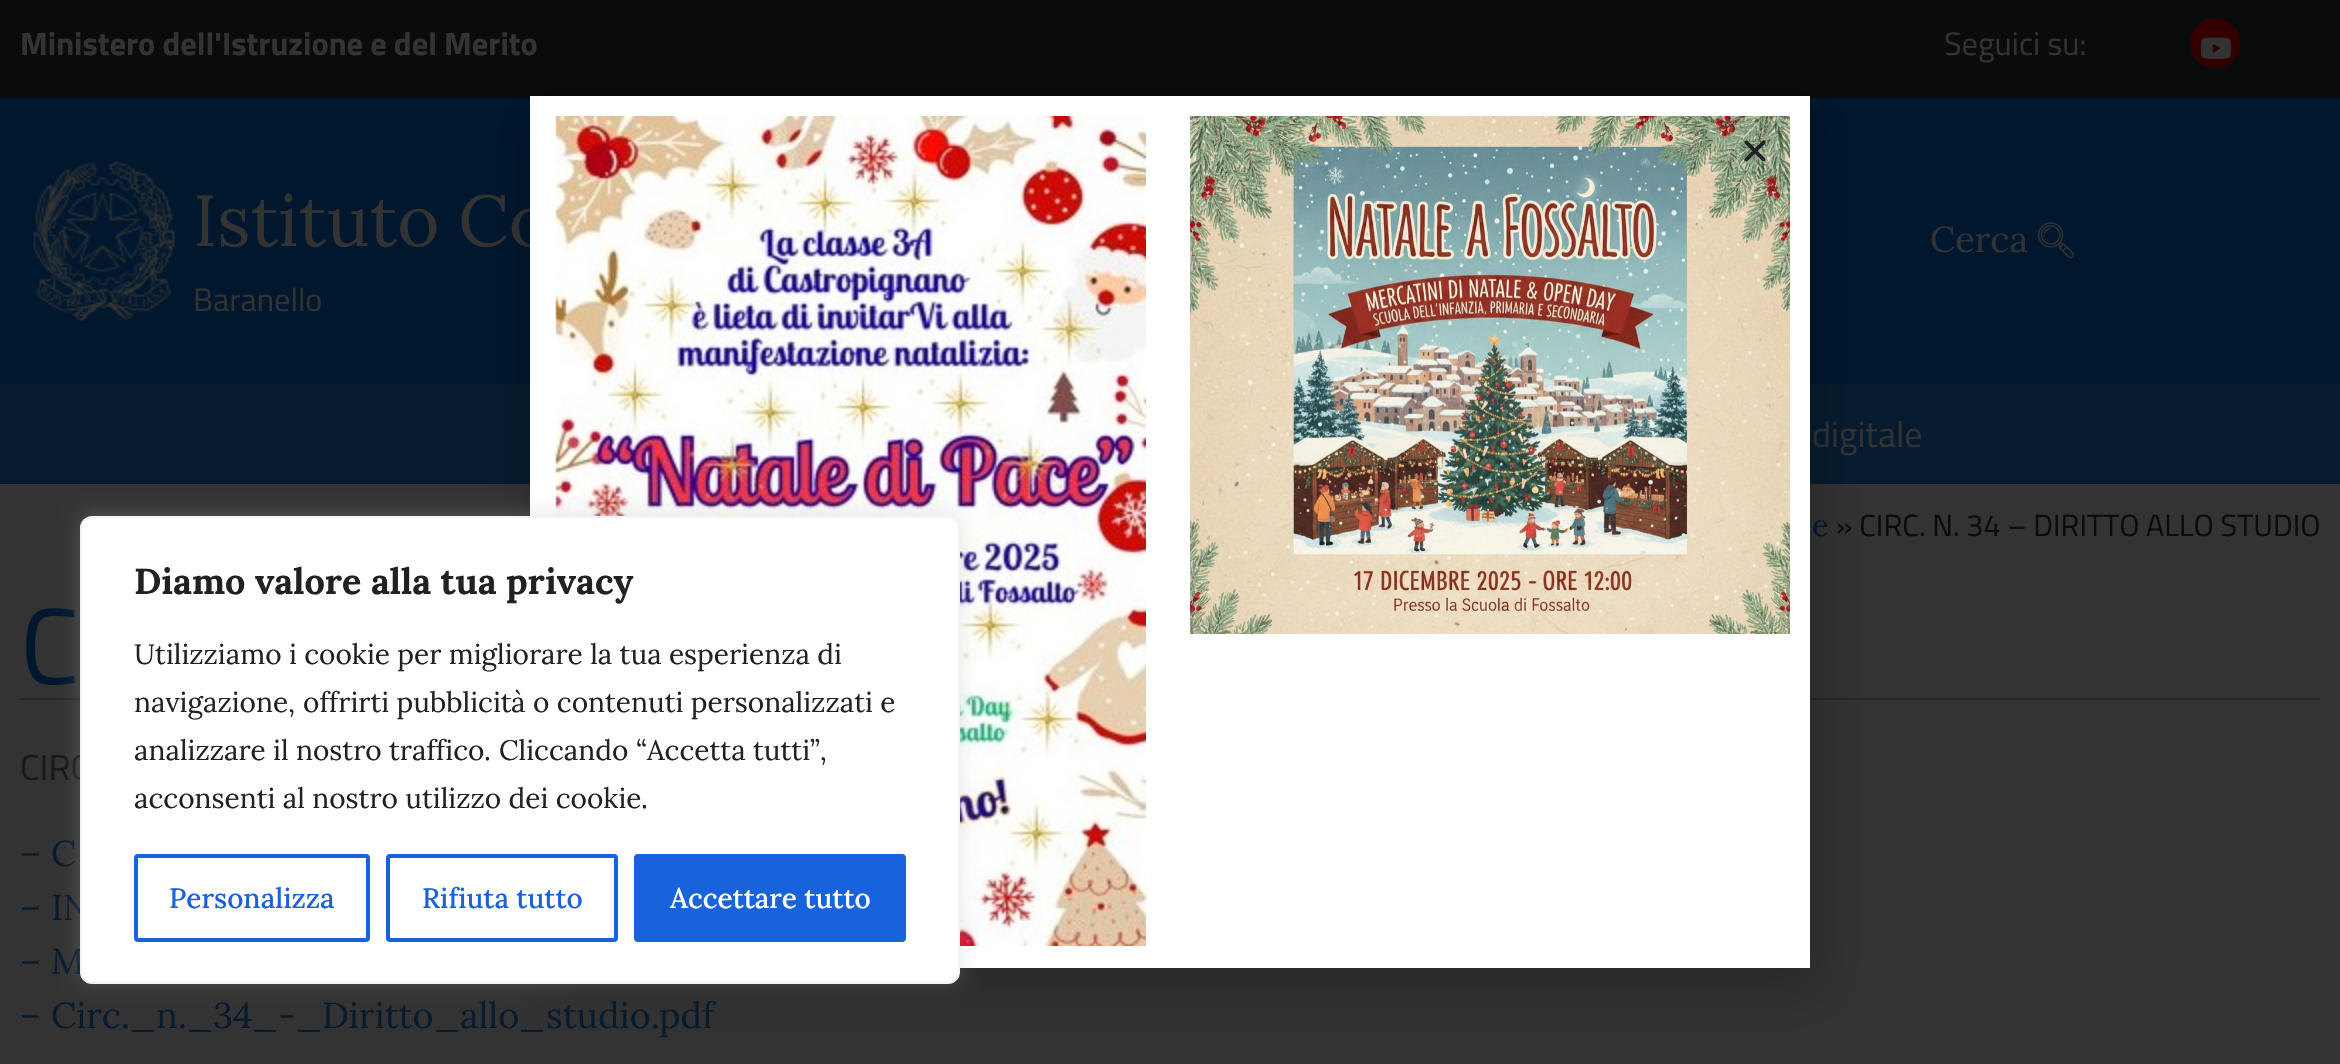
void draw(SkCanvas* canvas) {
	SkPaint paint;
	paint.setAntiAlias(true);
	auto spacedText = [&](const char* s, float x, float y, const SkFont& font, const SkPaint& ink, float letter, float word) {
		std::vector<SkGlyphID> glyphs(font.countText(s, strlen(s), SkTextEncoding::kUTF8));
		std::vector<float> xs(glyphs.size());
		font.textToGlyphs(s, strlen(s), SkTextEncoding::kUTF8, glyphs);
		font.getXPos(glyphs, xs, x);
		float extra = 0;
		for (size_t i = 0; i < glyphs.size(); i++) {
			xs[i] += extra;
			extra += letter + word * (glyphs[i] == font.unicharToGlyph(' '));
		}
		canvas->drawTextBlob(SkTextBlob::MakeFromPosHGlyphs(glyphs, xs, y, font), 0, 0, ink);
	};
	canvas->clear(0xff333333);
	paint.setColor(0xff0a0b0c);
	canvas->drawRect(SkRect::MakeXYWH(0, 0, 2340, 98), paint);
	SkFont f1(fontMgr->matchFamilyStyle("Titillium Web", SkFontStyle::Bold()), 32.4);
	f1.setSubpixel(true);
	paint.setColor(0xff333333);
	canvas->drawString("Ministero dell'Istruzione e del Merito", 20, 55, f1, paint);
	SkFont f2(fontMgr->matchFamilyStyle("Titillium Web", SkFontStyle::Normal()), 32.4);
	f2.setSubpixel(true);
	canvas->drawString("Seguici su:", 1944, 55, f2, paint);
	paint.setColor(0xff330000);
	canvas->drawCircle(2215, 43, 25, paint);
	canvas->drawImageRect(SkImages::DeferredFromEncodedData(SkData::MakeFromFileName("img1.png")), SkRect::MakeXYWH(2200, 37, 32, 22), SkSamplingOptions());
	paint.setColor(0xff00172e);
	canvas->drawRect(SkRect::MakeXYWH(0, 98, 2340, 286), paint);
	canvas->drawImageRect(SkImages::DeferredFromEncodedData(SkData::MakeFromFileName("img2.png")), SkRect::MakeXYWH(33, 161, 142, 160), SkSamplingOptions());
	SkFont f3(fontMgr->matchFamilyStyle("Lora", SkFontStyle::Normal()), 72);
	f3.setSubpixel(true);
	paint.setColor(0xff333333);
	canvas->drawString("Istituto Co", 193, 246, f3, paint);
	canvas->drawString("Baranello", 193, 311, f2, paint);
	SkFont f4(fontMgr->matchFamilyStyle("Lora", SkFontStyle::Normal()), 36);
	f4.setSubpixel(true);
	canvas->drawString("Cerca", 1930, 252, f4, paint);
	canvas->drawImageRect(SkImages::DeferredFromEncodedData(SkData::MakeFromFileName("img3.png")), SkRect::MakeXYWH(2038, 222, 36, 37), SkSamplingOptions());
	paint.setColor(0xff071b2f);
	canvas->drawRect(SkRect::MakeXYWH(0, 384, 2340, 100), paint);
	SkFont f5(fontMgr->matchFamilyStyle("Titillium Web", SkFontStyle::Normal()), 36);
	f5.setSubpixel(true);
	paint.setColor(0xff333333);
	canvas->drawString("digitale", 1812, 447, f5, paint);
	paint.setColor(0xff282727);
	canvas->drawRect(SkRect::MakeXYWH(20, 698, 2300, 2), paint);
	paint.setColor(0x33000000);
	paint.setMaskFilter(SkMaskFilter::MakeBlur(kNormal_SkBlurStyle, 23));
	canvas->drawRect(SkRect::MakeXYWH(528, 106, 1292, 884), paint);
	paint.setMaskFilter(nullptr);
	paint.setColor(0xffffffff);
	canvas->drawRect(SkRect::MakeXYWH(530, 96, 1280, 872), paint);
	canvas->drawImageRect(SkImages::DeferredFromEncodedData(SkData::MakeFromFileName("img4.png")), SkRect::MakeXYWH(555, 116, 591, 830), SkSamplingOptions());
	canvas->drawImageRect(SkImages::DeferredFromEncodedData(SkData::MakeFromFileName("img5.png")), SkRect::MakeXYWH(1190, 116, 600, 518), SkSamplingOptions());
	canvas->drawImageRect(SkImages::DeferredFromEncodedData(SkData::MakeFromFileName("img6.png")), SkRect::MakeXYWH(1744, 140, 22, 22), SkSamplingOptions());
	SkFont f6(fontMgr->matchFamilyStyle("Lora", SkFontStyle::Normal()), 30.6);
	f6.setSubpixel(true);
	paint.setColor(0xff00172e);
	canvas->drawString("e", 1812, 536, f6, paint);
	SkFont f7(fontMgr->matchFamilyStyle("Titillium Web", SkFontStyle::Normal()), 30.6);
	f7.setSubpixel(true);
	paint.setColor(0xff0a0b0c);
	canvas->drawString("» CIRC. N. 34 – DIRITTO ALLO STUDIO", 1836, 536, f7, paint);
	SkFont f8(fontMgr->matchFamilyStyle("Titillium Web", SkFontStyle::Normal()), 108);
	f8.setSubpixel(true);
	paint.setColor(0xff00172e);
	spacedText("C", 20, 684, f8, paint, -2, 0);
	paint.setColor(0xff181818);
	canvas->drawString("CIRC", 20, 780, f5, paint);
	SkFont f9(fontMgr->matchFamilyStyle("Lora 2", SkFontStyle::Normal()), 36);
	f9.setSubpixel(true);
	paint.setColor(0xff071b2f);
	canvas->drawString("–", 20, 866, f9, paint);
	canvas->drawString("C", 51, 866, f4, paint);
	canvas->drawString("–", 20, 920, f9, paint);
	canvas->drawString("IN", 51, 920, f4, paint);
	canvas->drawString("–", 20, 974, f9, paint);
	canvas->drawString("M", 51, 974, f4, paint);
	canvas->drawString("–", 20, 1028, f9, paint);
	canvas->drawString("Circ", 51, 1028, f4, paint);
	canvas->drawString("._", 121, 1028, f9, paint);
	canvas->drawString("n", 156, 1028, f4, paint);
	canvas->drawString("._", 178, 1028, f9, paint);
	canvas->drawString("34", 213, 1028, f4, paint);
	canvas->drawString("_-_", 252, 1028, f9, paint);
	canvas->drawString("Diritto", 322, 1028, f4, paint);
	canvas->drawString("allo", 460, 1028, f4, paint);
	canvas->drawString("studio", 546, 1028, f4, paint);
	canvas->drawString(".", 651, 1028, f9, paint);
	canvas->drawString("pdf", 659, 1028, f4, paint);
	canvas->drawString("_", 434, 1028, f9, paint);
	canvas->drawString("_", 519, 1028, f9, paint);
	paint.setColor(0x4dacabab);
	paint.setMaskFilter(SkMaskFilter::MakeBlur(kNormal_SkBlurStyle, 10));
	canvas->drawRoundRect(SkRect::MakeXYWH(80, 514, 880, 468), 12, 12, paint);
	paint.setMaskFilter(nullptr);
	paint.setColor(0xffffffff);
	canvas->drawRoundRect(SkRect::MakeXYWH(81, 517, 878, 466), 11, 11, paint);
	paint.setStroke(true);
	paint.setStrokeWidth(2);
	paint.setColor(0xfff4f4f4);
	canvas->drawRoundRect(SkRect::MakeXYWH(81, 517, 878, 466), 11, 11, paint);
	SkFont f10(fontMgr->matchFamilyStyle("Lora", SkFontStyle::Bold()), 36);
	f10.setSubpixel(true);
	paint.setStroke(false);
	paint.setColor(0xff212121);
	canvas->drawString("Diamo valore alla tua privacy", 134, 594, f10, paint);
	SkFont f11(fontMgr->matchFamilyStyle("Lora", SkFontStyle::Normal()), 28);
	f11.setSubpixel(true);
	canvas->drawString("Utilizziamo i cookie per migliorare la tua esperienza di", 134, 664, f11, paint);
	canvas->drawString("navigazione", 134, 712, f11, paint);
	SkFont f12(fontMgr->matchFamilyStyle("Lora 2", SkFontStyle::Normal()), 28);
	f12.setSubpixel(true);
	canvas->drawString(",", 288, 712, f12, paint);
	canvas->drawString("offrirti pubblicit", 303, 712, f11, paint);
	canvas->drawString("à", 511, 712, f12, paint);
	canvas->drawString("o contenuti personalizzati e", 533, 712, f11, paint);
	canvas->drawString("analizzare il nostro traffico", 134, 760, f11, paint);
	canvas->drawString(".", 484, 760, f12, paint);
	canvas->drawString("Cliccando", 499, 760, f11, paint);
	canvas->drawString("“", 636, 760, f12, paint);
	canvas->drawString("Accetta tutti", 647, 760, f11, paint);
	canvas->drawString("”,", 810, 760, f12, paint);
	canvas->drawString("acconsenti al nostro utilizzo dei cookie", 134, 808, f11, paint);
	canvas->drawString(".", 641, 808, f12, paint);
	paint.setStroke(true);
	paint.setStrokeWidth(4);
	paint.setColor(0xff1863dc);
	canvas->drawRoundRect(SkRect::MakeXYWH(136, 856, 232, 84), 2, 2, paint);
	SkFont f13(fontMgr->matchFamilyStyle("Lora", SkFontStyle(500, SkFontStyle::kNormal_Width, SkFontStyle::kUpright_Slant)), 28);
	f13.setSubpixel(true);
	paint.setStroke(false);
	canvas->drawString("Personalizza", 169, 908, f13, paint);
	paint.setStroke(true);
	canvas->drawRoundRect(SkRect::MakeXYWH(388, 856, 228, 84), 2, 2, paint);
	paint.setStroke(false);
	canvas->drawString("Rifiuta tutto", 422, 908, f13, paint);
	canvas->drawRoundRect(SkRect::MakeXYWH(636, 856, 268, 84), 2, 2, paint);
	paint.setStroke(true);
	canvas->drawRoundRect(SkRect::MakeXYWH(636, 856, 268, 84), 2, 2, paint);
	paint.setStroke(false);
	paint.setColor(0xffffffff);
	canvas->drawString("Accettare tutto", 670, 908, f13, paint);
}
